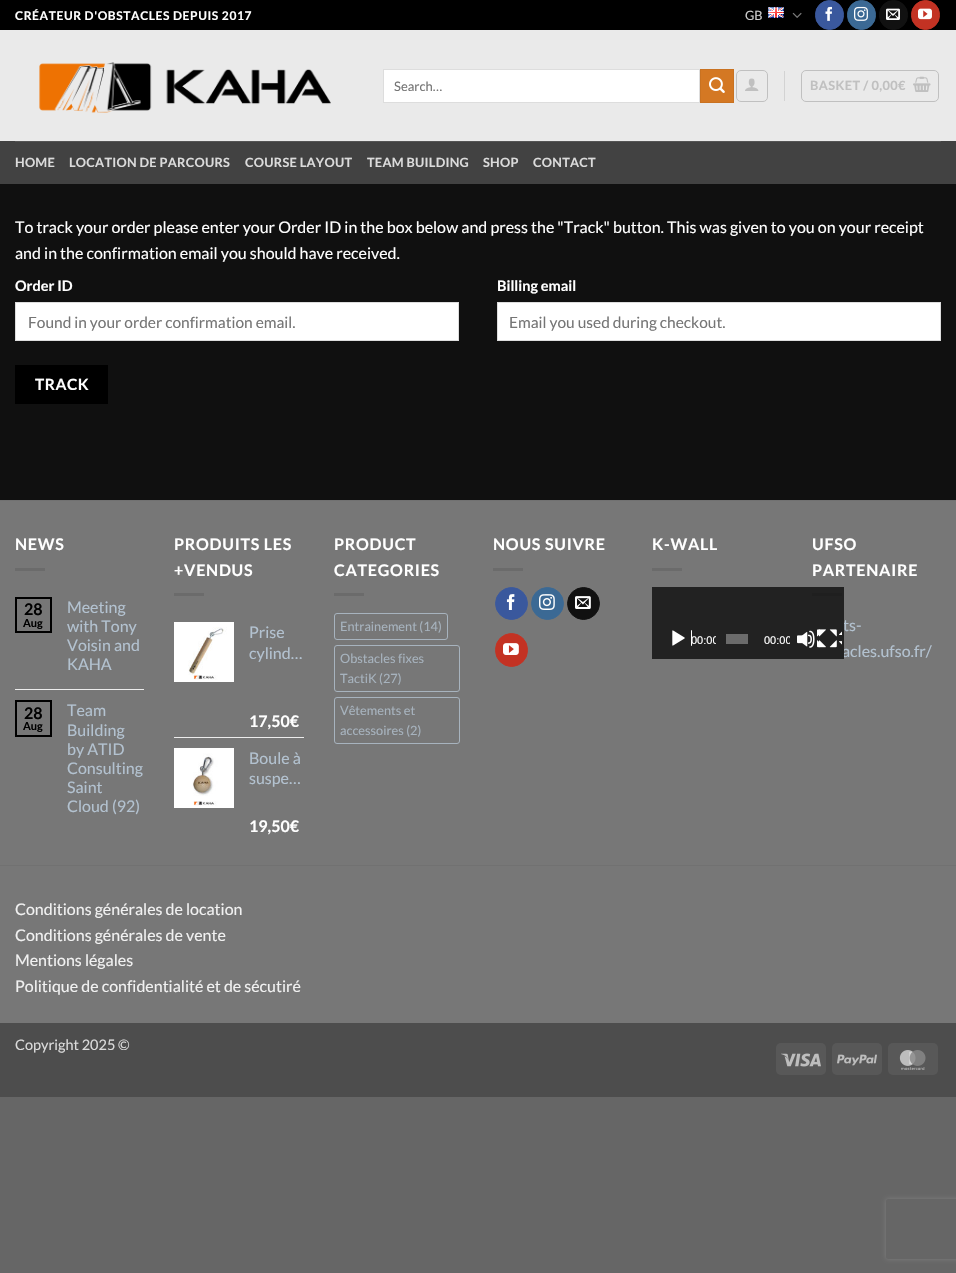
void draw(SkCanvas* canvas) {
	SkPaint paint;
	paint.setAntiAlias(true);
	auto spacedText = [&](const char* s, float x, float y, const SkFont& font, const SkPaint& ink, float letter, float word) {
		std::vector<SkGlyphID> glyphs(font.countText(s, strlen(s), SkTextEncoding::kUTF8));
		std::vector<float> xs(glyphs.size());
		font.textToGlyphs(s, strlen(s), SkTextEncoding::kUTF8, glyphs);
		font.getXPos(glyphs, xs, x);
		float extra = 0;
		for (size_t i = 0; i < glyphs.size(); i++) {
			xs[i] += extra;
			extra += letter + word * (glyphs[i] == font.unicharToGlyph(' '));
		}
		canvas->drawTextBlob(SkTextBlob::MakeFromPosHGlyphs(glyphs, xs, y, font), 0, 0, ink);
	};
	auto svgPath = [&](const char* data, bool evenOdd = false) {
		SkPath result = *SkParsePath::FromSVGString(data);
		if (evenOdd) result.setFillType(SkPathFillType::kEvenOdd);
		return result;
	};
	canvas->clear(0xff666666);
	paint.setColor(0xff000000);
	canvas->drawRect(SkRect::MakeXYWH(0, 0, 956, 30), paint);
	SkFont f1(fontMgr->matchFamilyStyle("Lato", SkFontStyle::Bold()), 12);
	f1.setSubpixel(true);
	paint.setColor(0xffffffff);
	spacedText("CRÉATEUR D'OBSTACLES DEPUIS 2017", 15, 20, f1, paint, 0.6, 0);
	SkFont f2(fontMgr->matchFamilyStyle("Lato", SkFontStyle::Normal()), 12.75);
	f2.setSubpixel(true);
	paint.setColor(0xffcccccc);
	canvas->drawString("GB", 745, 20, f2, paint);
	canvas->drawImageRect(SkImages::DeferredFromEncodedData(SkData::MakeFromFileName("img1.png")), SkRect::MakeXYWH(768, 7, 16, 11), SkSamplingOptions());
	canvas->drawImageRect(SkImages::DeferredFromEncodedData(SkData::MakeFromFileName("img2.png")), SkRect::MakeXYWH(792, 12, 10, 6), SkSamplingOptions());
	paint.setColor(0xff3a589d);
	canvas->drawRoundRect(SkRect::MakeXYWH(815.5, 0.5, 28, 29), 14, 14, paint);
	paint.setStroke(true);
	paint.setStrokeWidth(1);
	canvas->drawRoundRect(SkRect::MakeXYWH(815.5, 0.5, 28, 29), 14, 14, paint);
	canvas->drawImageRect(SkImages::DeferredFromEncodedData(SkData::MakeFromFileName("img3.png")), SkRect::MakeXYWH(825, 6, 7, 15), SkSamplingOptions());
	paint.setStroke(false);
	paint.setColor(0xff3b6994);
	canvas->drawRoundRect(SkRect::MakeXYWH(847.5, 0.5, 28, 29), 14, 14, paint);
	paint.setStroke(true);
	canvas->drawRoundRect(SkRect::MakeXYWH(847.5, 0.5, 28, 29), 14, 14, paint);
	canvas->drawImageRect(SkImages::DeferredFromEncodedData(SkData::MakeFromFileName("img4.png")), SkRect::MakeXYWH(854, 6, 14, 15), SkSamplingOptions());
	paint.setStroke(false);
	paint.setColor(0xff111111);
	canvas->drawRoundRect(SkRect::MakeXYWH(879.5, 0.5, 28, 29), 14, 14, paint);
	paint.setStroke(true);
	canvas->drawRoundRect(SkRect::MakeXYWH(879.5, 0.5, 28, 29), 14, 14, paint);
	canvas->drawImageRect(SkImages::DeferredFromEncodedData(SkData::MakeFromFileName("img5.png")), SkRect::MakeXYWH(886, 8, 14, 12), SkSamplingOptions());
	paint.setStroke(false);
	paint.setColor(0xffc33223);
	canvas->drawRoundRect(SkRect::MakeXYWH(911.5, 0.5, 28, 29), 14, 14, paint);
	paint.setStroke(true);
	canvas->drawRoundRect(SkRect::MakeXYWH(911.5, 0.5, 28, 29), 14, 14, paint);
	canvas->drawImageRect(SkImages::DeferredFromEncodedData(SkData::MakeFromFileName("img6.png")), SkRect::MakeXYWH(918, 8, 14, 12), SkSamplingOptions());
	paint.setStroke(false);
	paint.setColor(0xffeaeaea);
	canvas->drawRect(SkRect::MakeXYWH(0, 30, 956, 111), paint);
	canvas->drawImageRect(SkImages::DeferredFromEncodedData(SkData::MakeFromFileName("img7.png")), SkRect::MakeXYWH(39, 62, 292, 51), SkSamplingOptions());
	paint.setColor(0xffffffff);
	canvas->drawRect(SkRect::MakeXYWH(383.5, 69.5, 316, 33), paint);
	paint.setStroke(true);
	paint.setColor(0xffdddddd);
	canvas->drawRect(SkRect::MakeXYWH(383.5, 69.5, 316, 33), paint);
	SkFont f3(fontMgr->matchFamilyStyle("Lato", SkFontStyle::Normal()), 13);
	f3.setSubpixel(true);
	paint.setStroke(false);
	paint.setColor(0xff757575);
	canvas->drawString("Search…", 394, 91, f3, paint);
	paint.setColor(0xffd47823);
	canvas->drawRect(SkRect::MakeXYWH(700.5, 69.5, 33, 33), paint);
	paint.setStroke(true);
	paint.setColor(0xffc97221);
	canvas->drawRect(SkRect::MakeXYWH(700.5, 69.5, 33, 33), paint);
	canvas->drawImageRect(SkImages::DeferredFromEncodedData(SkData::MakeFromFileName("img8.png")), SkRect::MakeXYWH(709, 77, 16, 16), SkSamplingOptions());
	paint.setColor(0xffc0c0c0);
	canvas->drawRoundRect(SkRect::MakeXYWH(736.5, 70.5, 31, 31), 4.5, 4.5, paint);
	canvas->drawImageRect(SkImages::DeferredFromEncodedData(SkData::MakeFromFileName("img9.png")), SkRect::MakeXYWH(745, 78, 14, 13), SkSamplingOptions());
	paint.setStroke(false);
	paint.setColor(0xffd3d3d3);
	canvas->drawRect(SkRect::MakeXYWH(784, 71, 1, 30), paint);
	paint.setStroke(true);
	paint.setColor(0xffc0c0c0);
	canvas->drawRoundRect(SkRect::MakeXYWH(801.5, 70.5, 137, 31), 4.5, 4.5, paint);
	SkFont f4(fontMgr->matchFamilyStyle("Lato", SkFontStyle::Bold()), 12.75);
	f4.setSubpixel(true);
	paint.setStroke(false);
	spacedText("BASKET / 0,00€", 810, 90, f4, paint, 0.4, 0);
	canvas->drawImageRect(SkImages::DeferredFromEncodedData(SkData::MakeFromFileName("img10.png")), SkRect::MakeXYWH(913, 76, 18, 16), SkSamplingOptions());
	paint.setColor(0xff424242);
	canvas->drawRect(SkRect::MakeXYWH(0, 141, 956, 43), paint);
	paint.setColor(0xff555555);
	canvas->drawRect(SkRect::MakeXYWH(15, 141, 926, 1), paint);
	paint.setColor(0xffdbdbdb);
	spacedText("HOME", 15, 167, f4, paint, 0.25, 0);
	spacedText("LOCATION DE PARCOURS", 69, 167, f4, paint, 0.25, 0);
	spacedText("COURSE LAYOUT", 245, 167, f4, paint, 0.25, 0);
	spacedText("TEAM BUILDING", 367, 167, f4, paint, 0.25, 0);
	spacedText("SHOP", 483, 167, f4, paint, 0.25, 0);
	spacedText("CONTACT", 533, 167, f4, paint, 0.25, 0);
	paint.setColor(0xff101010);
	canvas->drawRect(SkRect::MakeXYWH(0, 184, 956, 316), paint);
	SkFont f5(fontMgr->matchFamilyStyle("Lato", SkFontStyle::Normal()), 16);
	f5.setSubpixel(true);
	paint.setColor(0xffffffff);
	canvas->drawString("To track your order please enter your Order ID in the box below and press the \"Track\" button. This was given to you on your receipt", 15, 233, f5, paint);
	canvas->drawString("and in the confirmation email you should have received.", 15, 259, f5, paint);
	SkFont f6(fontMgr->matchFamilyStyle("Lato", SkFontStyle::Bold()), 14.5);
	f6.setSubpixel(true);
	canvas->drawString("Order ID", 15, 291, f6, paint);
	canvas->drawRect(SkRect::MakeXYWH(15.5, 302.5, 443, 38), paint);
	paint.setStroke(true);
	paint.setColor(0xffdddddd);
	canvas->drawRect(SkRect::MakeXYWH(15.5, 302.5, 443, 38), paint);
	SkFont f7(fontMgr->matchFamilyStyle("Lato", SkFontStyle::Normal()), 15.5);
	f7.setSubpixel(true);
	paint.setStroke(false);
	paint.setColor(0xff757575);
	canvas->drawString("Found in your order confirmation email.", 28, 328, f7, paint);
	paint.setColor(0xffffffff);
	canvas->drawString("Billing email", 497, 291, f6, paint);
	canvas->drawRect(SkRect::MakeXYWH(497.5, 302.5, 443, 38), paint);
	paint.setStroke(true);
	paint.setColor(0xffdddddd);
	canvas->drawRect(SkRect::MakeXYWH(497.5, 302.5, 443, 38), paint);
	paint.setStroke(false);
	paint.setColor(0xff757575);
	canvas->drawString("Email you used during checkout.", 509, 328, f7, paint);
	paint.setColor(0xff000000);
	canvas->drawRect(SkRect::MakeXYWH(15, 365, 93, 39), paint);
	SkFont f8(fontMgr->matchFamilyStyle("Lato", SkFontStyle::Bold()), 15.5);
	f8.setSubpixel(true);
	paint.setColor(0xffffffff);
	spacedText("TRACK", 35, 390, f8, paint, 0.5, 0);
	paint.setColor(0xff777777);
	canvas->drawRect(SkRect::MakeXYWH(0, 501, 956, 364), paint);
	paint.setColor(0xff717171);
	canvas->drawRect(SkRect::MakeXYWH(0, 500, 956, 1), paint);
	SkFont f9(fontMgr->matchFamilyStyle("Lato", SkFontStyle::Bold()), 16);
	f9.setSubpixel(true);
	paint.setColor(0xffffffff);
	spacedText("NEWS", 15, 550, f9, paint, 0.75, 0);
	paint.setColor(0xff6b6b6b);
	canvas->drawRect(SkRect::MakeXYWH(15, 568, 30, 3), paint);
	paint.setStroke(true);
	paint.setStrokeWidth(2);
	paint.setColor(0xff000000);
	canvas->drawRect(SkRect::MakeXYWH(16, 598, 35, 34), paint);
	paint.setStroke(false);
	canvas->drawString("28", 24, 615, f9, paint);
	SkFont f10(fontMgr->matchFamilyStyle("Lato", SkFontStyle::Bold()), 11);
	f10.setSubpixel(true);
	canvas->drawString("Aug", 23, 627, f10, paint);
	paint.setColor(0xffb3c2d0);
	canvas->drawString("Meeting", 67, 613, f5, paint);
	canvas->drawString("with Tony", 67, 632, f5, paint);
	canvas->drawString("Voisin and", 67, 651, f5, paint);
	canvas->drawString("KAHA", 67, 670, f5, paint);
	paint.setColor(0xffececec);
	canvas->drawRect(SkRect::MakeXYWH(15, 689, 129, 1), paint);
	paint.setStroke(true);
	paint.setColor(0xff000000);
	canvas->drawRect(SkRect::MakeXYWH(16, 701, 35, 35), paint);
	paint.setStroke(false);
	canvas->drawString("28", 24, 719, f9, paint);
	canvas->drawString("Aug", 23, 730, f10, paint);
	paint.setColor(0xffb3c2d0);
	canvas->drawString("Team", 67, 716, f5, paint);
	canvas->drawString("Building", 67, 736, f5, paint);
	canvas->drawString("by ATID", 67, 755, f5, paint);
	canvas->drawString("Consulting", 67, 774, f5, paint);
	canvas->drawString("Saint", 67, 793, f5, paint);
	canvas->drawString("Cloud (92)", 67, 812, f5, paint);
	paint.setColor(0xffffffff);
	spacedText("PRODUITS LES", 174, 550, f9, paint, 0.75, 0);
	spacedText("+VENDUS", 174, 576, f9, paint, 0.75, 0);
	paint.setColor(0xff6b6b6b);
	canvas->drawRect(SkRect::MakeXYWH(174, 593, 30, 3), paint);
	canvas->drawImageRect(SkImages::DeferredFromEncodedData(SkData::MakeFromFileName("img11.png")), SkRect::MakeXYWH(174, 622, 60, 60), SkSamplingOptions());
	paint.setColor(0xffb3c2d0);
	canvas->drawString("Prise", 249, 638, f5, paint);
	canvas->drawString("cylind…", 249, 659, f5, paint);
	paint.setColor(0xffffffff);
	canvas->drawString("17,50€", 249, 727, f9, paint);
	paint.setColor(0xffececec);
	canvas->drawRect(SkRect::MakeXYWH(174, 737, 130, 1), paint);
	canvas->drawImageRect(SkImages::DeferredFromEncodedData(SkData::MakeFromFileName("img12.png")), SkRect::MakeXYWH(174, 748, 60, 60), SkSamplingOptions());
	paint.setColor(0xffb3c2d0);
	canvas->drawString("Boule à", 249, 764, f5, paint);
	canvas->drawString("suspe…", 249, 784, f5, paint);
	paint.setColor(0xffffffff);
	canvas->drawString("19,50€", 249, 832, f9, paint);
	spacedText("PRODUCT", 334, 550, f9, paint, 0.75, 0);
	spacedText("CATEGORIES", 334, 576, f9, paint, 0.75, 0);
	paint.setColor(0xff6b6b6b);
	canvas->drawRect(SkRect::MakeXYWH(334, 593, 30, 3), paint);
	paint.setStroke(true);
	paint.setStrokeWidth(1);
	paint.setColor(0xffa7b3be);
	canvas->drawRoundRect(SkRect::MakeXYWH(334.5, 613.5, 113, 26), 2.5, 2.5, paint);
	paint.setStroke(false);
	canvas->drawString("Entrainement (14)", 340, 631, f2, paint);
	paint.setStroke(true);
	canvas->drawRoundRect(SkRect::MakeXYWH(334.5, 645.5, 125, 46), 2.5, 2.5, paint);
	paint.setStroke(false);
	canvas->drawString("Obstacles fixes", 340, 663, f2, paint);
	canvas->drawString("TactiK (27)", 340, 683, f2, paint);
	paint.setStroke(true);
	canvas->drawRoundRect(SkRect::MakeXYWH(334.5, 697.5, 125, 46), 2.5, 2.5, paint);
	paint.setStroke(false);
	canvas->drawString("Vêtements et", 340, 715, f2, paint);
	canvas->drawString("accessoires (2)", 340, 735, f2, paint);
	paint.setColor(0xffffffff);
	spacedText("NOUS SUIVRE", 493, 550, f9, paint, 0.75, 0);
	paint.setColor(0xff6b6b6b);
	canvas->drawRect(SkRect::MakeXYWH(493, 568, 30, 3), paint);
	paint.setColor(0xff3a589d);
	canvas->drawCircle(511.5, 603.5, 16, paint);
	paint.setStroke(true);
	canvas->drawCircle(511.5, 603.5, 16, paint);
	canvas->drawImageRect(SkImages::DeferredFromEncodedData(SkData::MakeFromFileName("img13.png")), SkRect::MakeXYWH(506, 594, 9, 16), SkSamplingOptions());
	paint.setStroke(false);
	paint.setColor(0xff3b6994);
	canvas->drawCircle(547.5, 603.5, 16, paint);
	paint.setStroke(true);
	canvas->drawCircle(547.5, 603.5, 16, paint);
	canvas->drawImageRect(SkImages::DeferredFromEncodedData(SkData::MakeFromFileName("img14.png")), SkRect::MakeXYWH(539, 594, 16, 16), SkSamplingOptions());
	paint.setStroke(false);
	paint.setColor(0xff111111);
	canvas->drawCircle(583.5, 603.5, 16, paint);
	paint.setStroke(true);
	canvas->drawCircle(583.5, 603.5, 16, paint);
	canvas->drawImageRect(SkImages::DeferredFromEncodedData(SkData::MakeFromFileName("img15.png")), SkRect::MakeXYWH(575, 596, 16, 13), SkSamplingOptions());
	paint.setStroke(false);
	paint.setColor(0xffc33223);
	canvas->drawRoundRect(SkRect::MakeXYWH(495.5, 633.5, 32, 33), 16, 16, paint);
	paint.setStroke(true);
	canvas->drawRoundRect(SkRect::MakeXYWH(495.5, 633.5, 32, 33), 16, 16, paint);
	canvas->drawImageRect(SkImages::DeferredFromEncodedData(SkData::MakeFromFileName("img16.png")), SkRect::MakeXYWH(503, 643, 16, 12), SkSamplingOptions());
	paint.setStroke(false);
	paint.setColor(0xffffffff);
	spacedText("K-WALL", 652, 550, f9, paint, 0.75, 0);
	paint.setColor(0xff6b6b6b);
	canvas->drawRect(SkRect::MakeXYWH(652, 568, 30, 3), paint);
	paint.setColor(0xff222222);
	canvas->drawRect(SkRect::MakeXYWH(652, 587, 192, 32), paint);
	paint.setColor(0xffb3c2d0);
	canvas->drawString("ts-", 843, 631, f5, paint);
	canvas->drawString("acles.ufso.fr/", 842, 657, f5, paint);
	paint.setColor(0xff222222);
	canvas->drawRect(SkRect::MakeXYWH(652, 619, 192, 40), paint);
	canvas->save();
	canvas->clipRect(SkRect::MakeXYWH(685, 619, 31, 40));
	SkFont f11(fontMgr->matchFamilyStyle("Liberation Sans", SkFontStyle::Normal()), 11);
	f11.setSubpixel(true);
	paint.setColor(0xffffffff);
	canvas->drawString("00:00", 691, 644, f11, paint);
	canvas->restore();
	canvas->drawImageRect(SkImages::DeferredFromEncodedData(SkData::MakeFromFileName("img17.png")), SkRect::MakeXYWH(672, 630, 20, 16), SkSamplingOptions());
	paint.setColor(0xff6b6b6b);
	canvas->drawRect(SkRect::MakeXYWH(726, 634, 22, 10), paint);
	canvas->save();
	canvas->clipRect(SkRect::MakeXYWH(758, 619, 32, 40));
	paint.setColor(0xffffffff);
	canvas->drawString("00:00", 764, 644, f11, paint);
	canvas->restore();
	canvas->drawImageRect(SkImages::DeferredFromEncodedData(SkData::MakeFromFileName("img18.png")), SkRect::MakeXYWH(797, 629, 23, 19), SkSamplingOptions());
	canvas->drawImageRect(SkImages::DeferredFromEncodedData(SkData::MakeFromFileName("img19.png")), SkRect::MakeXYWH(819, 629, 23, 19), SkSamplingOptions());
	spacedText("UFSO", 812, 550, f9, paint, 0.75, 0);
	spacedText("PARTENAIRE", 812, 576, f9, paint, 0.75, 0);
	paint.setColor(0xff1f1f1f);
	canvas->drawRect(SkRect::MakeXYWH(812, 593, 30, 3), paint);
	paint.setColor(0xff777777);
	canvas->drawRect(SkRect::MakeXYWH(0, 866, 956, 157), paint);
	paint.setColor(0xff717171);
	canvas->drawRect(SkRect::MakeXYWH(0, 865, 956, 1), paint);
	paint.setColor(0xfff1f1f1);
	canvas->drawString("Conditions générales de location", 15, 915, f5, paint);
	canvas->drawString("Conditions générales de vente", 15, 941, f5, paint);
	canvas->drawString("Mentions légales", 15, 966, f5, paint);
	canvas->drawString("Politique de confidentialité et de sécutiré", 15, 992, f5, paint);
	paint.setColor(0xff4d4d4d);
	canvas->drawRect(SkRect::MakeXYWH(0, 1023, 956, 74), paint);
	SkFont f12(fontMgr->matchFamilyStyle("Lato", SkFontStyle::Normal()), 14.5);
	f12.setSubpixel(true);
	paint.setColor(0xffdbdbdb);
	canvas->drawString("Copyright 2025 ©", 15, 1050, f12, paint);
	paint.setColor(0xff585858);
	canvas->drawRoundRect(SkRect::MakeXYWH(776, 1043, 50, 32), 5, 5, paint);
	canvas->drawImageRect(SkImages::DeferredFromEncodedData(SkData::MakeFromFileName("img20.png")), SkRect::MakeXYWH(781, 1053, 40, 14), SkSamplingOptions());
	canvas->drawRoundRect(SkRect::MakeXYWH(832, 1043, 50, 32), 5, 5, paint);
	canvas->drawImageRect(SkImages::DeferredFromEncodedData(SkData::MakeFromFileName("img21.png")), SkRect::MakeXYWH(837, 1054, 40, 12), SkSamplingOptions());
	canvas->drawRoundRect(SkRect::MakeXYWH(888, 1043, 50, 32), 5, 5, paint);
	canvas->drawImageRect(SkImages::DeferredFromEncodedData(SkData::MakeFromFileName("img22.png")), SkRect::MakeXYWH(899, 1050, 27, 20), SkSamplingOptions());
	canvas->save();
	canvas->clipPath(svgPath("M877 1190H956V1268H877ZM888 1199H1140C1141 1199 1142 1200 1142 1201V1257C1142 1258 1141 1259 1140 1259H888C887 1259 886 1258 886 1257V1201C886 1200 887 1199 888 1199Z", true), true);
	paint.setColor(0xff808080);
	paint.setMaskFilter(SkMaskFilter::MakeBlur(kNormal_SkBlurStyle, 2.5));
	canvas->drawRoundRect(SkRect::MakeXYWH(886, 1199, 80, 60), 2, 2, paint);
	paint.setMaskFilter(nullptr);
	canvas->restore();
}
